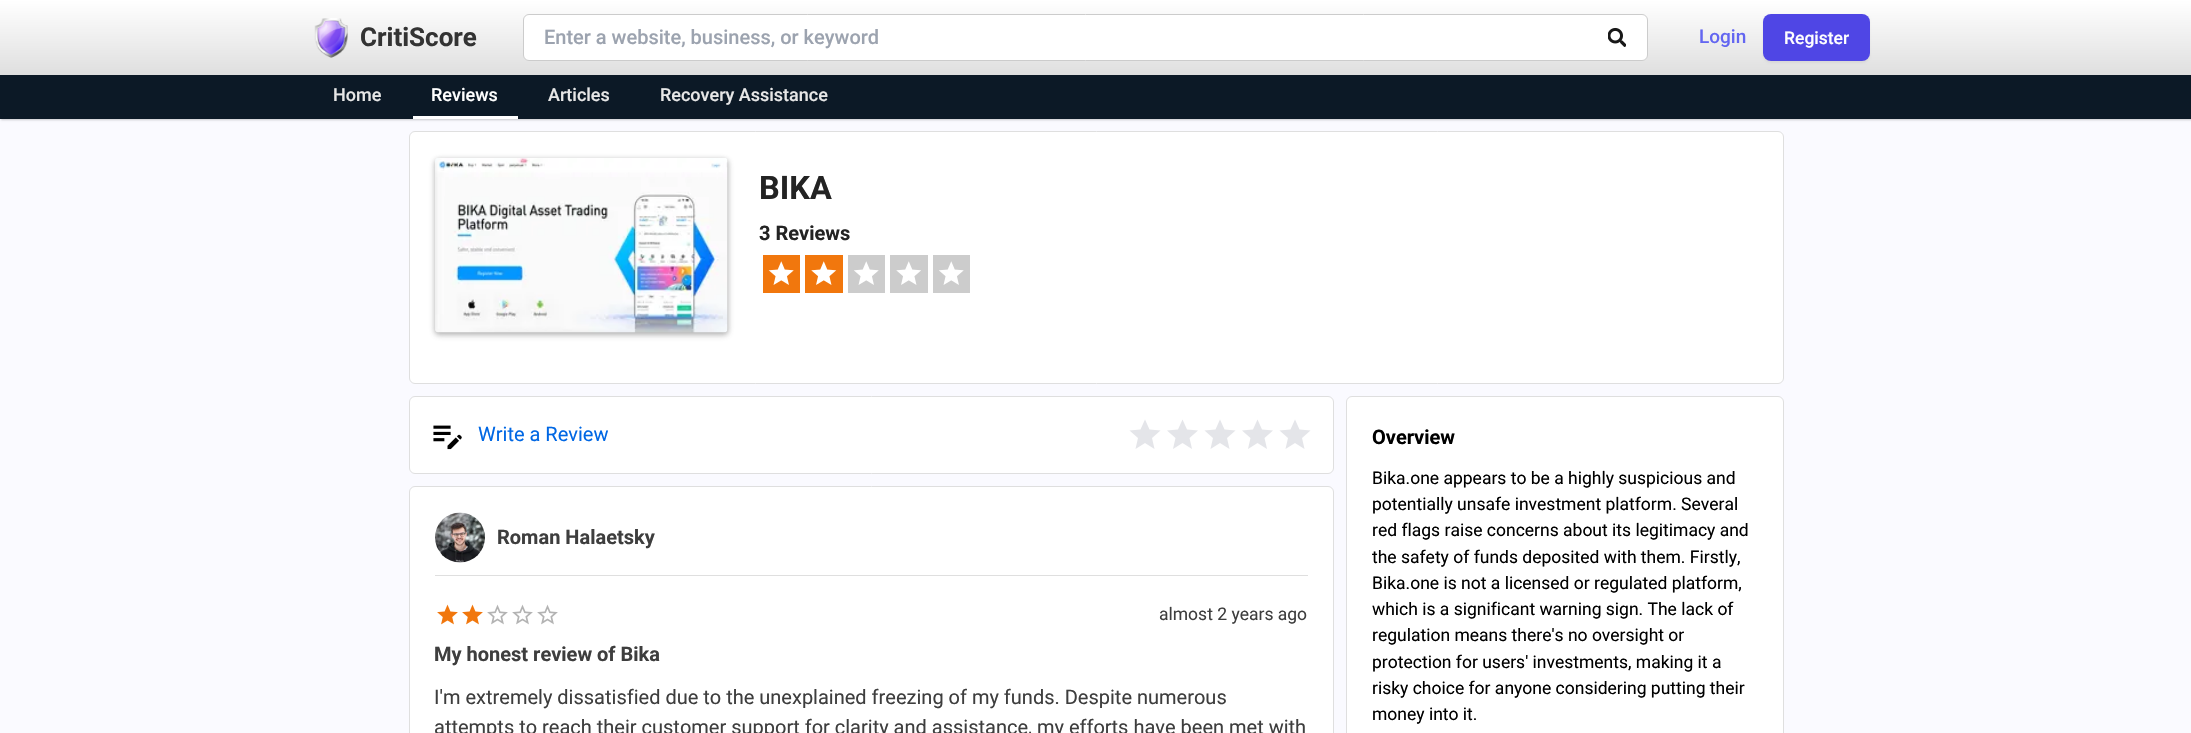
void draw(SkCanvas* canvas) {
	SkPaint paint;
	paint.setAntiAlias(true);
	auto svgPath = [&](const char* data, bool evenOdd = false) {
		SkPath result = *SkParsePath::FromSVGString(data);
		if (evenOdd) result.setFillType(SkPathFillType::kEvenOdd);
		return result;
	};
	canvas->clear(0xfffafaff);
	paint.setColor(0x33000000);
	paint.setMaskFilter(SkMaskFilter::MakeBlur(kNormal_SkBlurStyle, 1));
	canvas->drawRect(SkRect::MakeXYWH(1, 1, 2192, 119), paint);
	paint.setMaskFilter(nullptr);
	{
		const SkColor colors[] = {0xffffffff, 0xffcccccc};
		const float stops[] = {0, 1};
		const SkPoint ends[] = {{1096, 0}, {1096, 119}};
		paint.setShader(SkGradientShader::MakeLinear(ends, colors, stops, 2, SkTileMode::kClamp));
		paint.setAlpha(255);
	}
	canvas->drawRect(SkRect::MakeXYWH(0, 0, 2191, 75), paint);
	canvas->drawImageRect(SkImages::DeferredFromEncodedData(SkData::MakeFromFileName("img1.png")), SkRect::MakeXYWH(314, 18, 34, 40), SkSamplingOptions());
	SkFont f1(fontMgr->matchFamilyStyle("Roboto", SkFontStyle::Bold()), 26);
	f1.setSubpixel(true);
	paint.setShader(nullptr);
	paint.setColor(0xff333333);
	canvas->drawString("CritiScore", 360, 46, f1, paint);
	paint.setColor(0xffffffff);
	canvas->drawRoundRect(SkRect::MakeXYWH(523.5, 14.5, 1124, 46), 5.5, 5.5, paint);
	paint.setStroke(true);
	paint.setStrokeWidth(1);
	paint.setColor(0xffcccccc);
	canvas->drawRoundRect(SkRect::MakeXYWH(523.5, 14.5, 1124, 46), 5.5, 5.5, paint);
	SkFont f2(fontMgr->matchFamilyStyle("Roboto", SkFontStyle(500, SkFontStyle::kNormal_Width, SkFontStyle::kUpright_Slant)), 20);
	f2.setSubpixel(true);
	paint.setStroke(false);
	paint.setColor(0xff9ca3af);
	canvas->drawString("Enter a website, business, or keyword", 544, 44, f2, paint);
	canvas->drawImageRect(SkImages::DeferredFromEncodedData(SkData::MakeFromFileName("img2.png")), SkRect::MakeXYWH(1608, 27, 18, 20), SkSamplingOptions());
	SkFont f3(fontMgr->matchFamilyStyle("Roboto", SkFontStyle(500, SkFontStyle::kNormal_Width, SkFontStyle::kUpright_Slant)), 19);
	f3.setSubpixel(true);
	paint.setColor(0xff6366f1);
	canvas->drawString("Login", 1699, 43, f3, paint);
	paint.setColor(0x0d000000);
	paint.setMaskFilter(SkMaskFilter::MakeBlur(kNormal_SkBlurStyle, 1));
	canvas->drawRoundRect(SkRect::MakeXYWH(1763, 15, 107, 48), 8, 8, paint);
	paint.setMaskFilter(nullptr);
	paint.setColor(0xff4f46e5);
	canvas->drawRoundRect(SkRect::MakeXYWH(1763, 14, 107, 47), 8, 8, paint);
	SkFont f4(fontMgr->matchFamilyStyle("Roboto", SkFontStyle(500, SkFontStyle::kNormal_Width, SkFontStyle::kUpright_Slant)), 17.5);
	f4.setSubpixel(true);
	paint.setColor(0xffffffff);
	canvas->drawString("Register", 1784, 44, f4, paint);
	paint.setColor(0xff0c1926);
	canvas->drawRect(SkRect::MakeXYWH(0, 75, 2191, 44), paint);
	SkFont f5(fontMgr->matchFamilyStyle("Roboto", SkFontStyle(500, SkFontStyle::kNormal_Width, SkFontStyle::kUpright_Slant)), 18);
	f5.setSubpixel(true);
	paint.setColor(0xffe7e7e7);
	canvas->drawString("Home", 333, 101, f5, paint);
	paint.setColor(0xffffffff);
	canvas->drawRect(SkRect::MakeXYWH(413, 116, 105, 3), paint);
	canvas->drawString("Reviews", 431, 101, f5, paint);
	paint.setColor(0xffe7e7e7);
	canvas->drawString("Articles", 548, 101, f5, paint);
	canvas->drawString("Recovery Assistance", 660, 101, f5, paint);
	paint.setColor(0xffffffff);
	canvas->drawRoundRect(SkRect::MakeXYWH(409.5, 131.5, 1374, 252), 5.5, 5.5, paint);
	paint.setStroke(true);
	paint.setColor(0xffdfdfdf);
	canvas->drawRoundRect(SkRect::MakeXYWH(409.5, 131.5, 1374, 252), 5.5, 5.5, paint);
	paint.setStroke(false);
	paint.setColor(0x334d4c4c);
	paint.setMaskFilter(SkMaskFilter::MakeBlur(kNormal_SkBlurStyle, 2));
	canvas->drawRoundRect(SkRect::MakeXYWH(435, 159, 293, 175), 4, 4, paint);
	paint.setMaskFilter(nullptr);
	paint.setColor(0x4d4a4a4a);
	paint.setMaskFilter(SkMaskFilter::MakeBlur(kNormal_SkBlurStyle, 3));
	canvas->drawRoundRect(SkRect::MakeXYWH(435, 160, 293, 175), 4, 4, paint);
	paint.setMaskFilter(nullptr);
	canvas->drawImageRect(SkImages::DeferredFromEncodedData(SkData::MakeFromFileName("img3.png")), SkRect::MakeXYWH(435, 158, 293, 175), SkSamplingOptions());
	SkFont f6(fontMgr->matchFamilyStyle("Roboto", SkFontStyle::Bold()), 32.5);
	f6.setSubpixel(true);
	paint.setColor(0xff232323);
	canvas->drawString("BIKA", 759, 199, f6, paint);
	SkFont f7(fontMgr->matchFamilyStyle("Roboto", SkFontStyle::Bold()), 20);
	f7.setSubpixel(true);
	canvas->drawString("3 Reviews", 759, 240, f7, paint);
	paint.setColor(0xfff1770d);
	canvas->drawRect(SkRect::MakeXYWH(763, 255, 37, 38), paint);
	canvas->drawImageRect(SkImages::DeferredFromEncodedData(SkData::MakeFromFileName("img4.png")), SkRect::MakeXYWH(768, 261, 26, 24), SkSamplingOptions());
	canvas->drawRect(SkRect::MakeXYWH(805, 255, 38, 38), paint);
	canvas->drawImageRect(SkImages::DeferredFromEncodedData(SkData::MakeFromFileName("img5.png")), SkRect::MakeXYWH(811, 261, 26, 24), SkSamplingOptions());
	paint.setColor(0xffcccccc);
	canvas->drawRect(SkRect::MakeXYWH(848, 255, 37, 38), paint);
	canvas->drawImageRect(SkImages::DeferredFromEncodedData(SkData::MakeFromFileName("img6.png")), SkRect::MakeXYWH(854, 261, 25, 24), SkSamplingOptions());
	canvas->drawRect(SkRect::MakeXYWH(890, 255, 38, 38), paint);
	canvas->drawImageRect(SkImages::DeferredFromEncodedData(SkData::MakeFromFileName("img7.png")), SkRect::MakeXYWH(896, 261, 25, 24), SkSamplingOptions());
	canvas->drawRect(SkRect::MakeXYWH(933, 255, 37, 38), paint);
	canvas->drawImageRect(SkImages::DeferredFromEncodedData(SkData::MakeFromFileName("img6.png")), SkRect::MakeXYWH(939, 261, 25, 24), SkSamplingOptions());
	paint.setColor(0xffffffff);
	canvas->drawRoundRect(SkRect::MakeXYWH(409.5, 396.5, 924, 77), 5.5, 5.5, paint);
	paint.setStroke(true);
	paint.setColor(0xffdfdfdf);
	canvas->drawRoundRect(SkRect::MakeXYWH(409.5, 396.5, 924, 77), 5.5, 5.5, paint);
	canvas->drawImageRect(SkImages::DeferredFromEncodedData(SkData::MakeFromFileName("img8.png")), SkRect::MakeXYWH(433, 425, 29, 25), SkSamplingOptions());
	SkFont f8(fontMgr->matchFamilyStyle("Roboto", SkFontStyle::Normal()), 20);
	f8.setSubpixel(true);
	paint.setStroke(false);
	paint.setColor(0xff0067e4);
	canvas->drawString("Write a Review", 478, 441, f8, paint);
	paint.setColor(0xffe4e5e9);
	canvas->drawPath(svgPath("M1145 443L1154.5 449L1152 438L1160.5 430.5L1149.5 429.5L1145 419.5L1140.5 429.5L1129.5 430.5L1138 438L1135.5 449Z"), paint);
	canvas->drawPath(svgPath("M1182.5 443L1192 449L1189.5 438L1198 430.5L1187 429.5L1182.5 419.5L1178 429.5L1167 430.5L1175.5 438L1173 449Z"), paint);
	canvas->drawPath(svgPath("M1220 443L1229.5 449L1227 438L1235.5 430.5L1224.5 429.5L1220 419.5L1215.5 429.5L1204.5 430.5L1213 438L1210.5 449Z"), paint);
	canvas->drawPath(svgPath("M1257.5 443L1267 449L1264.5 438L1273 430.5L1262 429.5L1257.5 419.5L1253 429.5L1242 430.5L1250.5 438L1248 449Z"), paint);
	canvas->drawPath(svgPath("M1295 443L1304.5 449L1302 438L1310.5 430.5L1299.5 429.5L1295 419.5L1290.5 429.5L1279.5 430.5L1288 438L1285.5 449Z"), paint);
	paint.setColor(0xffffffff);
	canvas->drawRoundRect(SkRect::MakeXYWH(409.5, 486.5, 924, 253), 5.5, 5.5, paint);
	paint.setStroke(true);
	paint.setColor(0xffdfdfdf);
	canvas->drawRoundRect(SkRect::MakeXYWH(409.5, 486.5, 924, 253), 5.5, 5.5, paint);
	canvas->drawImageRect(SkImages::DeferredFromEncodedData(SkData::MakeFromFileName("img9.png")), SkRect::MakeXYWH(435, 512, 50, 51), SkSamplingOptions());
	paint.setStroke(false);
	paint.setColor(0xff3e3e3e);
	canvas->drawString("Roman Halaetsky", 497, 544, f7, paint);
	paint.setColor(0xffdfdfdf);
	canvas->drawRect(SkRect::MakeXYWH(435, 575, 873, 1), paint);
	canvas->drawImageRect(SkImages::DeferredFromEncodedData(SkData::MakeFromFileName("img10.png")), SkRect::MakeXYWH(437, 604, 21, 21), SkSamplingOptions());
	canvas->drawImageRect(SkImages::DeferredFromEncodedData(SkData::MakeFromFileName("img10.png")), SkRect::MakeXYWH(462, 604, 21, 21), SkSamplingOptions());
	canvas->drawImageRect(SkImages::DeferredFromEncodedData(SkData::MakeFromFileName("img11.png")), SkRect::MakeXYWH(487, 604, 21, 21), SkSamplingOptions());
	canvas->drawImageRect(SkImages::DeferredFromEncodedData(SkData::MakeFromFileName("img11.png")), SkRect::MakeXYWH(512, 604, 21, 21), SkSamplingOptions());
	canvas->drawImageRect(SkImages::DeferredFromEncodedData(SkData::MakeFromFileName("img11.png")), SkRect::MakeXYWH(537, 604, 21, 21), SkSamplingOptions());
	SkFont f9(fontMgr->matchFamilyStyle("Roboto", SkFontStyle::Normal()), 17.5);
	f9.setSubpixel(true);
	paint.setColor(0xff3e3e3e);
	canvas->drawString("almost 2 years ago", 1159, 620, f9, paint);
	canvas->drawString("My honest review of Bika", 434, 661, f7, paint);
	canvas->drawString("I'm extremely dissatisfied due to the unexplained freezing of my funds. Despite numerous", 434, 704, f8, paint);
	canvas->drawString("attempts to reach their customer support for clarity and assistance, my efforts have been met with", 434, 734, f8, paint);
	paint.setColor(0xffffffff);
	canvas->drawRoundRect(SkRect::MakeXYWH(1346.5, 396.5, 437, 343), 5.5, 5.5, paint);
	paint.setStroke(true);
	paint.setColor(0xffdfdfdf);
	canvas->drawRoundRect(SkRect::MakeXYWH(1346.5, 396.5, 437, 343), 5.5, 5.5, paint);
	paint.setStroke(false);
	paint.setColor(0xff000000);
	canvas->drawString("Overview", 1372, 444, f7, paint);
	canvas->drawString("Bika.one appears to be a highly suspicious and", 1372, 484, f9, paint);
	canvas->drawString("potentially unsafe investment platform. Several", 1372, 510, f9, paint);
	canvas->drawString("red flags raise concerns about its legitimacy and", 1372, 536, f9, paint);
	canvas->drawString("the safety of funds deposited with them. Firstly,", 1372, 563, f9, paint);
	canvas->drawString("Bika.one is not a licensed or regulated platform,", 1372, 589, f9, paint);
	canvas->drawString("which is a significant warning sign. The lack of", 1372, 615, f9, paint);
	canvas->drawString("regulation means there's no oversight or", 1372, 641, f9, paint);
	canvas->drawString("protection for users' investments, making it a", 1372, 668, f9, paint);
	canvas->drawString("risky choice for anyone considering putting their", 1372, 694, f9, paint);
	canvas->drawString("money into it.", 1372, 720, f9, paint);
}
